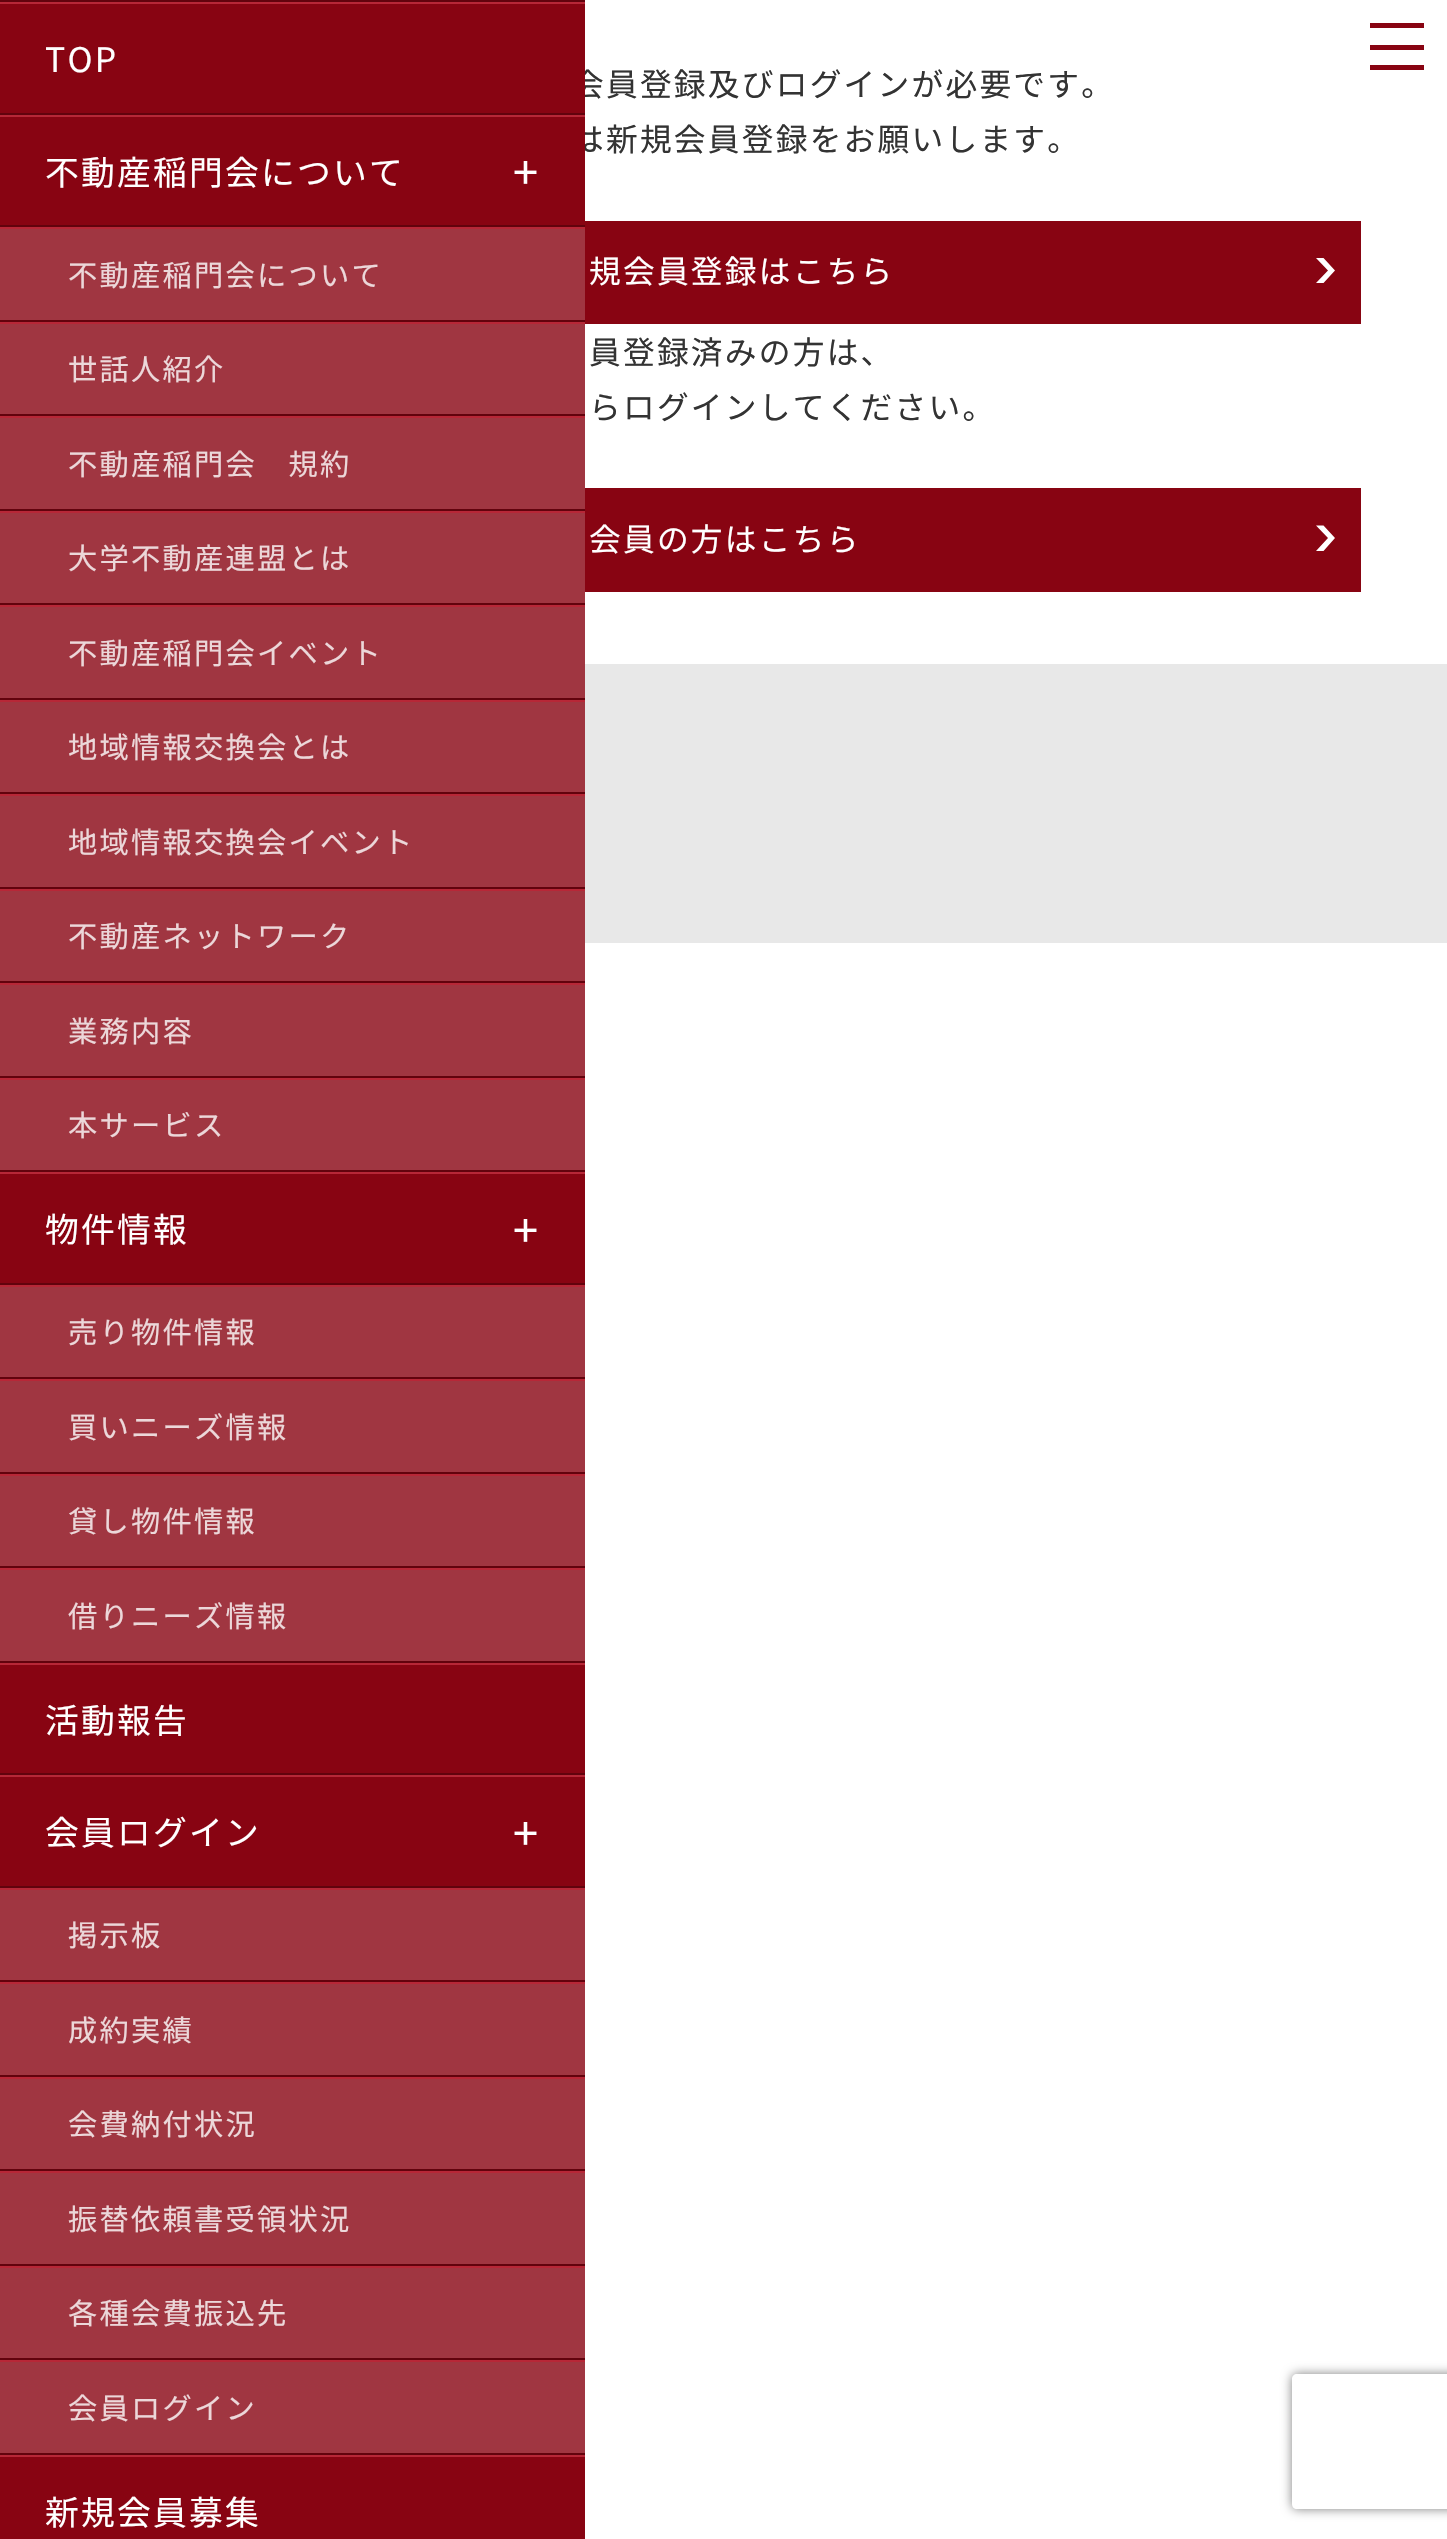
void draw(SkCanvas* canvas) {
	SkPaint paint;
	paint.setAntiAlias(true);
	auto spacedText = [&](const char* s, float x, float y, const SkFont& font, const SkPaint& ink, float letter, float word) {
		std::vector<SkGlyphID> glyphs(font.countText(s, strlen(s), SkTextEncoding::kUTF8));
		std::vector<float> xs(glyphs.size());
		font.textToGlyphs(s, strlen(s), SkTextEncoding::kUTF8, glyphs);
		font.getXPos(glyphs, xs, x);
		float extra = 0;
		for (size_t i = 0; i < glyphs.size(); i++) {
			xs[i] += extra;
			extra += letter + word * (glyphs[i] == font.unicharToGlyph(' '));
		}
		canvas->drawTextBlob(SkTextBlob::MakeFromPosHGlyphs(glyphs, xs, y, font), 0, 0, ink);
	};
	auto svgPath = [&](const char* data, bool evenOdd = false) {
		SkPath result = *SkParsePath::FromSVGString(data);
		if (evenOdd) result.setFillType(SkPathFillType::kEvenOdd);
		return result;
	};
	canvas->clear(0xffffffff);
	SkFont f1(fontMgr->matchFamilyStyle("Noto Sans JP", SkFontStyle::Normal()), 31.7);
	f1.setSubpixel(true);
	paint.setColor(0xff333333);
	spacedText("会員登録及びログインが必要です。", 572, 96, f1, paint, 2.25, 0);
	spacedText("は新規会員登録をお願いします。", 572, 151, f1, paint, 2.25, 0);
	paint.setColor(0xff880412);
	canvas->drawRect(SkRect::MakeXYWH(0, 4, 585, 2535), paint);
	paint.setColor(0xff62030d);
	canvas->drawRect(SkRect::MakeXYWH(0, 0, 585, 2), paint);
	paint.setColor(0xffb72737);
	canvas->drawRect(SkRect::MakeXYWH(0, 2, 585, 2), paint);
	paint.setColor(0xff62030d);
	canvas->drawRect(SkRect::MakeXYWH(0, 113, 585, 2), paint);
	SkFont f2(fontMgr->matchFamilyStyle("Noto Sans JP", SkFontStyle::Normal()), 33.75);
	f2.setSubpixel(true);
	paint.setColor(0xffffffff);
	spacedText("TOP", 45, 72, f2, paint, 2.25, 0);
	paint.setColor(0xffb72737);
	canvas->drawRect(SkRect::MakeXYWH(0, 115, 585, 2), paint);
	paint.setColor(0xff62030d);
	canvas->drawRect(SkRect::MakeXYWH(0, 1170, 585, 2), paint);
	paint.setColor(0xffffffff);
	spacedText("不動産稲門会について", 45, 185, f2, paint, 2.25, 0);
	SkFont f3(fontMgr->matchFamilyStyle("Noto Sans JP", SkFontStyle::Normal()), 45);
	f3.setSubpixel(true);
	spacedText("+", 513, 189, f3, paint, 2.25, 0);
	paint.setColor(0xffa03641);
	canvas->drawRect(SkRect::MakeXYWH(0, 229, 585, 941), paint);
	paint.setColor(0xff62030d);
	canvas->drawRect(SkRect::MakeXYWH(0, 225, 585, 2), paint);
	paint.setColor(0xffb72737);
	canvas->drawRect(SkRect::MakeXYWH(0, 227, 585, 2), paint);
	paint.setColor(0xff62030d);
	canvas->drawRect(SkRect::MakeXYWH(0, 320, 585, 2), paint);
	SkFont f4(fontMgr->matchFamilyStyle("Noto Sans JP", SkFontStyle::Normal()), 29.25);
	f4.setSubpixel(true);
	paint.setColor(0xffecd7d9);
	spacedText("不動産稲門会について", 68, 286, f4, paint, 2.25, 0);
	paint.setColor(0xffb72737);
	canvas->drawRect(SkRect::MakeXYWH(0, 322, 585, 2), paint);
	paint.setColor(0xff62030d);
	canvas->drawRect(SkRect::MakeXYWH(0, 414, 585, 2), paint);
	paint.setColor(0xffecd7d9);
	spacedText("世話人紹介", 68, 380, f4, paint, 2.25, 0);
	paint.setColor(0xffb72737);
	canvas->drawRect(SkRect::MakeXYWH(0, 416, 585, 2), paint);
	paint.setColor(0xff62030d);
	canvas->drawRect(SkRect::MakeXYWH(0, 509, 585, 2), paint);
	paint.setColor(0xffecd7d9);
	spacedText("不動産稲門会　規約", 68, 475, f4, paint, 2.25, 0);
	paint.setColor(0xffb72737);
	canvas->drawRect(SkRect::MakeXYWH(0, 511, 585, 2), paint);
	paint.setColor(0xff62030d);
	canvas->drawRect(SkRect::MakeXYWH(0, 603, 585, 2), paint);
	paint.setColor(0xffecd7d9);
	spacedText("大学不動産連盟とは", 68, 569, f4, paint, 2.25, 0);
	paint.setColor(0xffb72737);
	canvas->drawRect(SkRect::MakeXYWH(0, 605, 585, 2), paint);
	paint.setColor(0xff62030d);
	canvas->drawRect(SkRect::MakeXYWH(0, 698, 585, 2), paint);
	paint.setColor(0xffecd7d9);
	spacedText("不動産稲門会イベント", 68, 664, f4, paint, 2.25, 0);
	paint.setColor(0xffb72737);
	canvas->drawRect(SkRect::MakeXYWH(0, 700, 585, 2), paint);
	paint.setColor(0xff62030d);
	canvas->drawRect(SkRect::MakeXYWH(0, 792, 585, 2), paint);
	paint.setColor(0xffecd7d9);
	spacedText("地域情報交換会とは", 68, 758, f4, paint, 2.25, 0);
	paint.setColor(0xffb72737);
	canvas->drawRect(SkRect::MakeXYWH(0, 794, 585, 2), paint);
	paint.setColor(0xff62030d);
	canvas->drawRect(SkRect::MakeXYWH(0, 887, 585, 2), paint);
	paint.setColor(0xffecd7d9);
	spacedText("地域情報交換会イベント", 68, 853, f4, paint, 2.25, 0);
	paint.setColor(0xffb72737);
	canvas->drawRect(SkRect::MakeXYWH(0, 889, 585, 2), paint);
	paint.setColor(0xff62030d);
	canvas->drawRect(SkRect::MakeXYWH(0, 981, 585, 2), paint);
	paint.setColor(0xffecd7d9);
	spacedText("不動産ネットワーク", 68, 947, f4, paint, 2.25, 0);
	paint.setColor(0xffb72737);
	canvas->drawRect(SkRect::MakeXYWH(0, 983, 585, 2), paint);
	paint.setColor(0xff62030d);
	canvas->drawRect(SkRect::MakeXYWH(0, 1076, 585, 2), paint);
	paint.setColor(0xffecd7d9);
	spacedText("業務内容", 68, 1042, f4, paint, 2.25, 0);
	paint.setColor(0xffb72737);
	canvas->drawRect(SkRect::MakeXYWH(0, 1078, 585, 2), paint);
	paint.setColor(0xffecd7d9);
	spacedText("本サービス", 68, 1136, f4, paint, 2.25, 0);
	paint.setColor(0xffb72737);
	canvas->drawRect(SkRect::MakeXYWH(0, 1172, 585, 2), paint);
	paint.setColor(0xff62030d);
	canvas->drawRect(SkRect::MakeXYWH(0, 1661, 585, 2), paint);
	paint.setColor(0xffffffff);
	spacedText("物件情報", 45, 1242, f2, paint, 2.25, 0);
	spacedText("+", 513, 1247, f3, paint, 2.25, 0);
	paint.setColor(0xffa03641);
	canvas->drawRect(SkRect::MakeXYWH(0, 1287, 585, 374), paint);
	paint.setColor(0xff62030d);
	canvas->drawRect(SkRect::MakeXYWH(0, 1283, 585, 2), paint);
	paint.setColor(0xffb72737);
	canvas->drawRect(SkRect::MakeXYWH(0, 1285, 585, 2), paint);
	paint.setColor(0xff62030d);
	canvas->drawRect(SkRect::MakeXYWH(0, 1377, 585, 2), paint);
	paint.setColor(0xffecd7d9);
	spacedText("売り物件情報", 68, 1343, f4, paint, 2.25, 0);
	paint.setColor(0xffb72737);
	canvas->drawRect(SkRect::MakeXYWH(0, 1379, 585, 2), paint);
	paint.setColor(0xff62030d);
	canvas->drawRect(SkRect::MakeXYWH(0, 1472, 585, 2), paint);
	paint.setColor(0xffecd7d9);
	spacedText("買いニーズ情報", 68, 1438, f4, paint, 2.25, 0);
	paint.setColor(0xffb72737);
	canvas->drawRect(SkRect::MakeXYWH(0, 1474, 585, 2), paint);
	paint.setColor(0xff62030d);
	canvas->drawRect(SkRect::MakeXYWH(0, 1566, 585, 2), paint);
	paint.setColor(0xffecd7d9);
	spacedText("貸し物件情報", 68, 1532, f4, paint, 2.25, 0);
	paint.setColor(0xffb72737);
	canvas->drawRect(SkRect::MakeXYWH(0, 1568, 585, 2), paint);
	paint.setColor(0xffecd7d9);
	spacedText("借りニーズ情報", 68, 1627, f4, paint, 2.25, 0);
	paint.setColor(0xffb72737);
	canvas->drawRect(SkRect::MakeXYWH(0, 1663, 585, 2), paint);
	paint.setColor(0xff62030d);
	canvas->drawRect(SkRect::MakeXYWH(0, 1773, 585, 2), paint);
	paint.setColor(0xffffffff);
	spacedText("活動報告", 45, 1733, f2, paint, 2.25, 0);
	paint.setColor(0xffb72737);
	canvas->drawRect(SkRect::MakeXYWH(0, 1775, 585, 2), paint);
	paint.setColor(0xff62030d);
	canvas->drawRect(SkRect::MakeXYWH(0, 2453, 585, 2), paint);
	paint.setColor(0xffffffff);
	spacedText("会員ログイン", 45, 1845, f2, paint, 2.25, 0);
	spacedText("+", 513, 1850, f3, paint, 2.25, 0);
	paint.setColor(0xffa03641);
	canvas->drawRect(SkRect::MakeXYWH(0, 1890, 585, 563), paint);
	paint.setColor(0xff62030d);
	canvas->drawRect(SkRect::MakeXYWH(0, 1886, 585, 2), paint);
	paint.setColor(0xffb72737);
	canvas->drawRect(SkRect::MakeXYWH(0, 1888, 585, 2), paint);
	paint.setColor(0xff62030d);
	canvas->drawRect(SkRect::MakeXYWH(0, 1980, 585, 2), paint);
	paint.setColor(0xffecd7d9);
	spacedText("掲示板", 68, 1946, f4, paint, 2.25, 0);
	paint.setColor(0xffb72737);
	canvas->drawRect(SkRect::MakeXYWH(0, 1982, 585, 2), paint);
	paint.setColor(0xff62030d);
	canvas->drawRect(SkRect::MakeXYWH(0, 2075, 585, 2), paint);
	paint.setColor(0xffecd7d9);
	spacedText("成約実績", 68, 2041, f4, paint, 2.25, 0);
	paint.setColor(0xffb72737);
	canvas->drawRect(SkRect::MakeXYWH(0, 2077, 585, 2), paint);
	paint.setColor(0xff62030d);
	canvas->drawRect(SkRect::MakeXYWH(0, 2169, 585, 2), paint);
	paint.setColor(0xffecd7d9);
	spacedText("会費納付状況", 68, 2135, f4, paint, 2.25, 0);
	paint.setColor(0xffb72737);
	canvas->drawRect(SkRect::MakeXYWH(0, 2171, 585, 2), paint);
	paint.setColor(0xff62030d);
	canvas->drawRect(SkRect::MakeXYWH(0, 2264, 585, 2), paint);
	paint.setColor(0xffecd7d9);
	spacedText("振替依頼書受領状況", 68, 2230, f4, paint, 2.25, 0);
	paint.setColor(0xffb72737);
	canvas->drawRect(SkRect::MakeXYWH(0, 2266, 585, 2), paint);
	paint.setColor(0xff62030d);
	canvas->drawRect(SkRect::MakeXYWH(0, 2358, 585, 2), paint);
	paint.setColor(0xffecd7d9);
	spacedText("各種会費振込先", 68, 2324, f4, paint, 2.25, 0);
	paint.setColor(0xffb72737);
	canvas->drawRect(SkRect::MakeXYWH(0, 2360, 585, 2), paint);
	paint.setColor(0xffecd7d9);
	spacedText("会員ログイン", 68, 2419, f4, paint, 2.25, 0);
	paint.setColor(0xffb72737);
	canvas->drawRect(SkRect::MakeXYWH(0, 2455, 585, 2), paint);
	paint.setColor(0xffffffff);
	spacedText("新規会員募集", 45, 2525, f2, paint, 2.25, 0);
	paint.setColor(0xff880412);
	canvas->drawRect(SkRect::MakeXYWH(585, 221, 776, 103), paint);
	paint.setColor(0xffffffff);
	spacedText("規会員登録はこちら", 589, 283, f1, paint, 2.25, 0);
	canvas->drawPath(svgPath("M1335 270.5L1323.5 258H1316L1328 270.5L1316 283H1323.5Z"), paint);
	paint.setColor(0xff333333);
	spacedText("員登録済みの方は、", 589, 364, f1, paint, 2.25, 0);
	spacedText("らログインしてください。", 589, 419, f1, paint, 2.25, 0);
	paint.setColor(0xff880412);
	canvas->drawRect(SkRect::MakeXYWH(585, 488, 776, 104), paint);
	paint.setColor(0xffffffff);
	spacedText("会員の方はこちら", 589, 551, f1, paint, 2.25, 0);
	canvas->drawPath(svgPath("M1335 538L1323.5 525.5H1316L1328 538L1316 551H1323.5Z"), paint);
	paint.setColor(0xff880412);
	canvas->drawRect(SkRect::MakeXYWH(1370, 23, 54, 5), paint);
	canvas->drawRect(SkRect::MakeXYWH(1370, 45, 54, 5), paint);
	canvas->drawRect(SkRect::MakeXYWH(1370, 65, 54, 5), paint);
	paint.setColor(0xffe8e8e8);
	canvas->drawRect(SkRect::MakeXYWH(585, 664, 862, 279), paint);
	canvas->save();
	canvas->clipPath(svgPath("M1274 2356H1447V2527H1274ZM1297 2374H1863C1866 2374 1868 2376 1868 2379V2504C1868 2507 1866 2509 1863 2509H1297C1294 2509 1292 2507 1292 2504V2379C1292 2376 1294 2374 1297 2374Z", true), true);
	paint.setColor(0xff808080);
	paint.setMaskFilter(SkMaskFilter::MakeBlur(kNormal_SkBlurStyle, 5.5));
	canvas->drawRoundRect(SkRect::MakeXYWH(1292, 2374, 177, 135), 5, 5, paint);
	paint.setMaskFilter(nullptr);
	canvas->restore();
}
